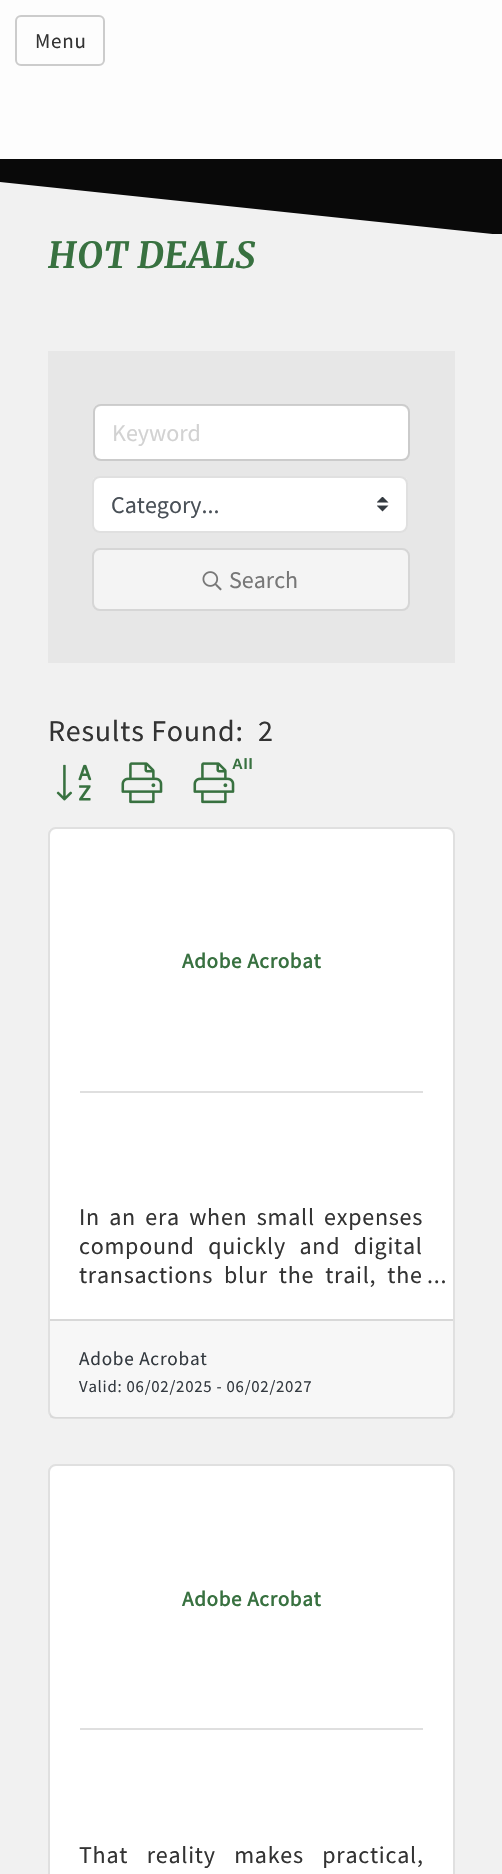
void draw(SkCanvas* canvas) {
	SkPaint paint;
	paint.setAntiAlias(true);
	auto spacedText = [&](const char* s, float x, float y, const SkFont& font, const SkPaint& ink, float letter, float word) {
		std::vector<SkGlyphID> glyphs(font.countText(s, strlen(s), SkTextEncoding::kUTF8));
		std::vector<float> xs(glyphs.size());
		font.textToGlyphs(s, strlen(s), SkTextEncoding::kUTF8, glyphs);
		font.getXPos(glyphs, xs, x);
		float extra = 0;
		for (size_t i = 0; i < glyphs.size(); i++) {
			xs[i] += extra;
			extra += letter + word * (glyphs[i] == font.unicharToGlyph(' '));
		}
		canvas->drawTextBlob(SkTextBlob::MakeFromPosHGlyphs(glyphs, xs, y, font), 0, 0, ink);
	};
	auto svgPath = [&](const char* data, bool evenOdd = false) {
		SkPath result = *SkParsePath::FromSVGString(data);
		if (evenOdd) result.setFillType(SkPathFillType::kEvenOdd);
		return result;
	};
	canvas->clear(0xff090909);
	paint.setColor(0xfffdfdfd);
	canvas->drawRect(SkRect::MakeXYWH(0, 0, 502, 159), paint);
	paint.setStroke(true);
	paint.setStrokeWidth(2);
	paint.setColor(0xffcccccc);
	canvas->drawRoundRect(SkRect::MakeXYWH(16, 16, 88, 49), 5, 5, paint);
	SkFont f1(fontMgr->matchFamilyStyle("Source Sans Pro", SkFontStyle::Normal()), 21);
	f1.setSubpixel(true);
	paint.setStroke(false);
	paint.setColor(0xff333333);
	spacedText("Menu", 35, 48, f1, paint, 0.75, 0);
	paint.setColor(0xfff1f1f1);
	canvas->drawRect(SkRect::MakeXYWH(493, 234, 9, 1), paint);
	canvas->drawPath(svgPath("M0 182L502 235V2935L0 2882Z"), paint);
	SkFont f2(fontMgr->matchFamilyStyle("Merriweather", SkFontStyle(300, SkFontStyle::kNormal_Width, SkFontStyle::kItalic_Slant)), 36);
	f2.setSubpixel(true);
	paint.setColor(0xff387140);
	spacedText("HOT DEALS", 48, 268, f2, paint, 0.75, 0);
	paint.setColor(0xffe7e7e7);
	canvas->drawRect(SkRect::MakeXYWH(48, 351, 407, 312), paint);
	paint.setColor(0xffffffff);
	canvas->drawRoundRect(SkRect::MakeXYWH(95, 405, 313, 54), 6, 6, paint);
	paint.setColor(0x12000000);
	canvas->drawPath(svgPath("M100 406H402C405 406 408 409 408 412V411C408 408 405 405 402 405H101C99 405 97 406 96 408C97 407 99 406 100 406Z"), paint);
	paint.setStroke(true);
	paint.setColor(0x1f000000);
	canvas->drawRoundRect(SkRect::MakeXYWH(94, 405, 315, 55), 7, 7, paint);
	SkFont f3(fontMgr->matchFamilyStyle("Source Sans Pro", SkFontStyle::Normal()), 24);
	f3.setSubpixel(true);
	paint.setStroke(false);
	paint.setColor(0xffd2d2d2);
	canvas->drawString("Keyword", 112, 441, f3, paint);
	paint.setColor(0xffffffff);
	canvas->drawRoundRect(SkRect::MakeXYWH(92, 476, 316, 57), 8, 8, paint);
	canvas->drawImageRect(SkImages::DeferredFromEncodedData(SkData::MakeFromFileName("img1.png")), SkRect::MakeXYWH(377, 497, 12, 15), SkSamplingOptions());
	paint.setStroke(true);
	paint.setColor(0x1f000000);
	canvas->drawRoundRect(SkRect::MakeXYWH(93, 477, 314, 55), 7, 7, paint);
	paint.setStroke(false);
	paint.setColor(0xff495057);
	canvas->drawString("Category...", 111, 513, f3, paint);
	paint.setColor(0xfff4f4f4);
	canvas->drawRoundRect(SkRect::MakeXYWH(92, 548, 318, 63), 8, 8, paint);
	paint.setStroke(true);
	paint.setColor(0x1f000000);
	canvas->drawRoundRect(SkRect::MakeXYWH(93, 549, 316, 61), 7, 7, paint);
	canvas->drawImageRect(SkImages::DeferredFromEncodedData(SkData::MakeFromFileName("img2.png")), SkRect::MakeXYWH(202, 571, 20, 20), SkSamplingOptions());
	paint.setStroke(false);
	paint.setColor(0xff777777);
	canvas->drawString("Search", 229, 588, f3, paint);
	SkFont f4(fontMgr->matchFamilyStyle("Source Sans Pro", SkFontStyle::Normal()), 30);
	f4.setSubpixel(true);
	paint.setColor(0xff333333);
	spacedText("Results Found:", 48, 741, f4, paint, 0.75, 0);
	spacedText("2", 258, 741, f4, paint, 0.75, 0);
	canvas->drawImageRect(SkImages::DeferredFromEncodedData(SkData::MakeFromFileName("img3.png")), SkRect::MakeXYWH(56, 764, 36, 37), SkSamplingOptions());
	canvas->drawImageRect(SkImages::DeferredFromEncodedData(SkData::MakeFromFileName("img4.png")), SkRect::MakeXYWH(121, 762, 42, 42), SkSamplingOptions());
	canvas->drawImageRect(SkImages::DeferredFromEncodedData(SkData::MakeFromFileName("img4.png")), SkRect::MakeXYWH(193, 762, 42, 42), SkSamplingOptions());
	SkFont f5(fontMgr->matchFamilyStyle("Liberation Sans", SkFontStyle::Bold()), 15);
	f5.setSubpixel(true);
	paint.setColor(0xff387140);
	spacedText("All", 232, 769, f5, paint, 0.75, 0);
	paint.setColor(0xffffffff);
	canvas->drawRoundRect(SkRect::MakeXYWH(48, 827, 407, 592), 8, 8, paint);
	paint.setStroke(true);
	paint.setColor(0x1f000000);
	canvas->drawRoundRect(SkRect::MakeXYWH(49, 828, 405, 590), 7, 7, paint);
	SkFont f6(fontMgr->matchFamilyStyle("Source Sans Pro", SkFontStyle::Bold()), 21);
	f6.setSubpixel(true);
	paint.setStroke(false);
	paint.setColor(0xff387140);
	spacedText("Adobe Acrobat", 182, 968, f6, paint, 0.75, 0);
	paint.setColor(0xffdfdfdf);
	canvas->drawRect(SkRect::MakeXYWH(80, 1091, 343, 2), paint);
	paint.setColor(0xff333333);
	spacedText("In an era when small expenses", 79, 1225, f3, paint, 0.75, 3.75);
	spacedText("compound quickly and digital", 79, 1254, f3, paint, 0.75, 8);
	spacedText("transactions blur the trail, the", 79, 1283, f3, paint, 0.75, 5.5);
	spacedText("...", 427, 1283, f3, paint, 0.75, 0);
	paint.setColor(0x08000000);
	canvas->drawRect(SkRect::MakeXYWH(50, 1321, 403, 97), paint);
	paint.setColor(0xffd8d8d8);
	canvas->drawRect(SkRect::MakeXYWH(50, 1319, 403, 2), paint);
	SkFont f7(fontMgr->matchFamilyStyle("Source Sans Pro", SkFontStyle::Normal()), 19.25);
	f7.setSubpixel(true);
	paint.setColor(0xff343a40);
	spacedText("Adobe Acrobat", 79, 1365, f7, paint, 0.75, 0);
	SkFont f8(fontMgr->matchFamilyStyle("Source Sans Pro", SkFontStyle::Normal()), 16.75);
	f8.setSubpixel(true);
	spacedText("Valid: 06/02/2025 - 06/02/2027", 79, 1392, f8, paint, 0.75, 0);
	paint.setColor(0xffffffff);
	canvas->drawRoundRect(SkRect::MakeXYWH(48, 1464, 407, 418), 8, 8, paint);
	paint.setStroke(true);
	paint.setColor(0x1f000000);
	canvas->drawRoundRect(SkRect::MakeXYWH(49, 1465, 405, 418), 7, 7, paint);
	paint.setStroke(false);
	paint.setColor(0xff387140);
	spacedText("Adobe Acrobat", 182, 1606, f6, paint, 0.75, 0);
	paint.setColor(0xffdfdfdf);
	canvas->drawRect(SkRect::MakeXYWH(80, 1728, 343, 2), paint);
	paint.setColor(0xff333333);
	spacedText("That reality makes practical,", 79, 1863, f3, paint, 0.75, 13);
}
